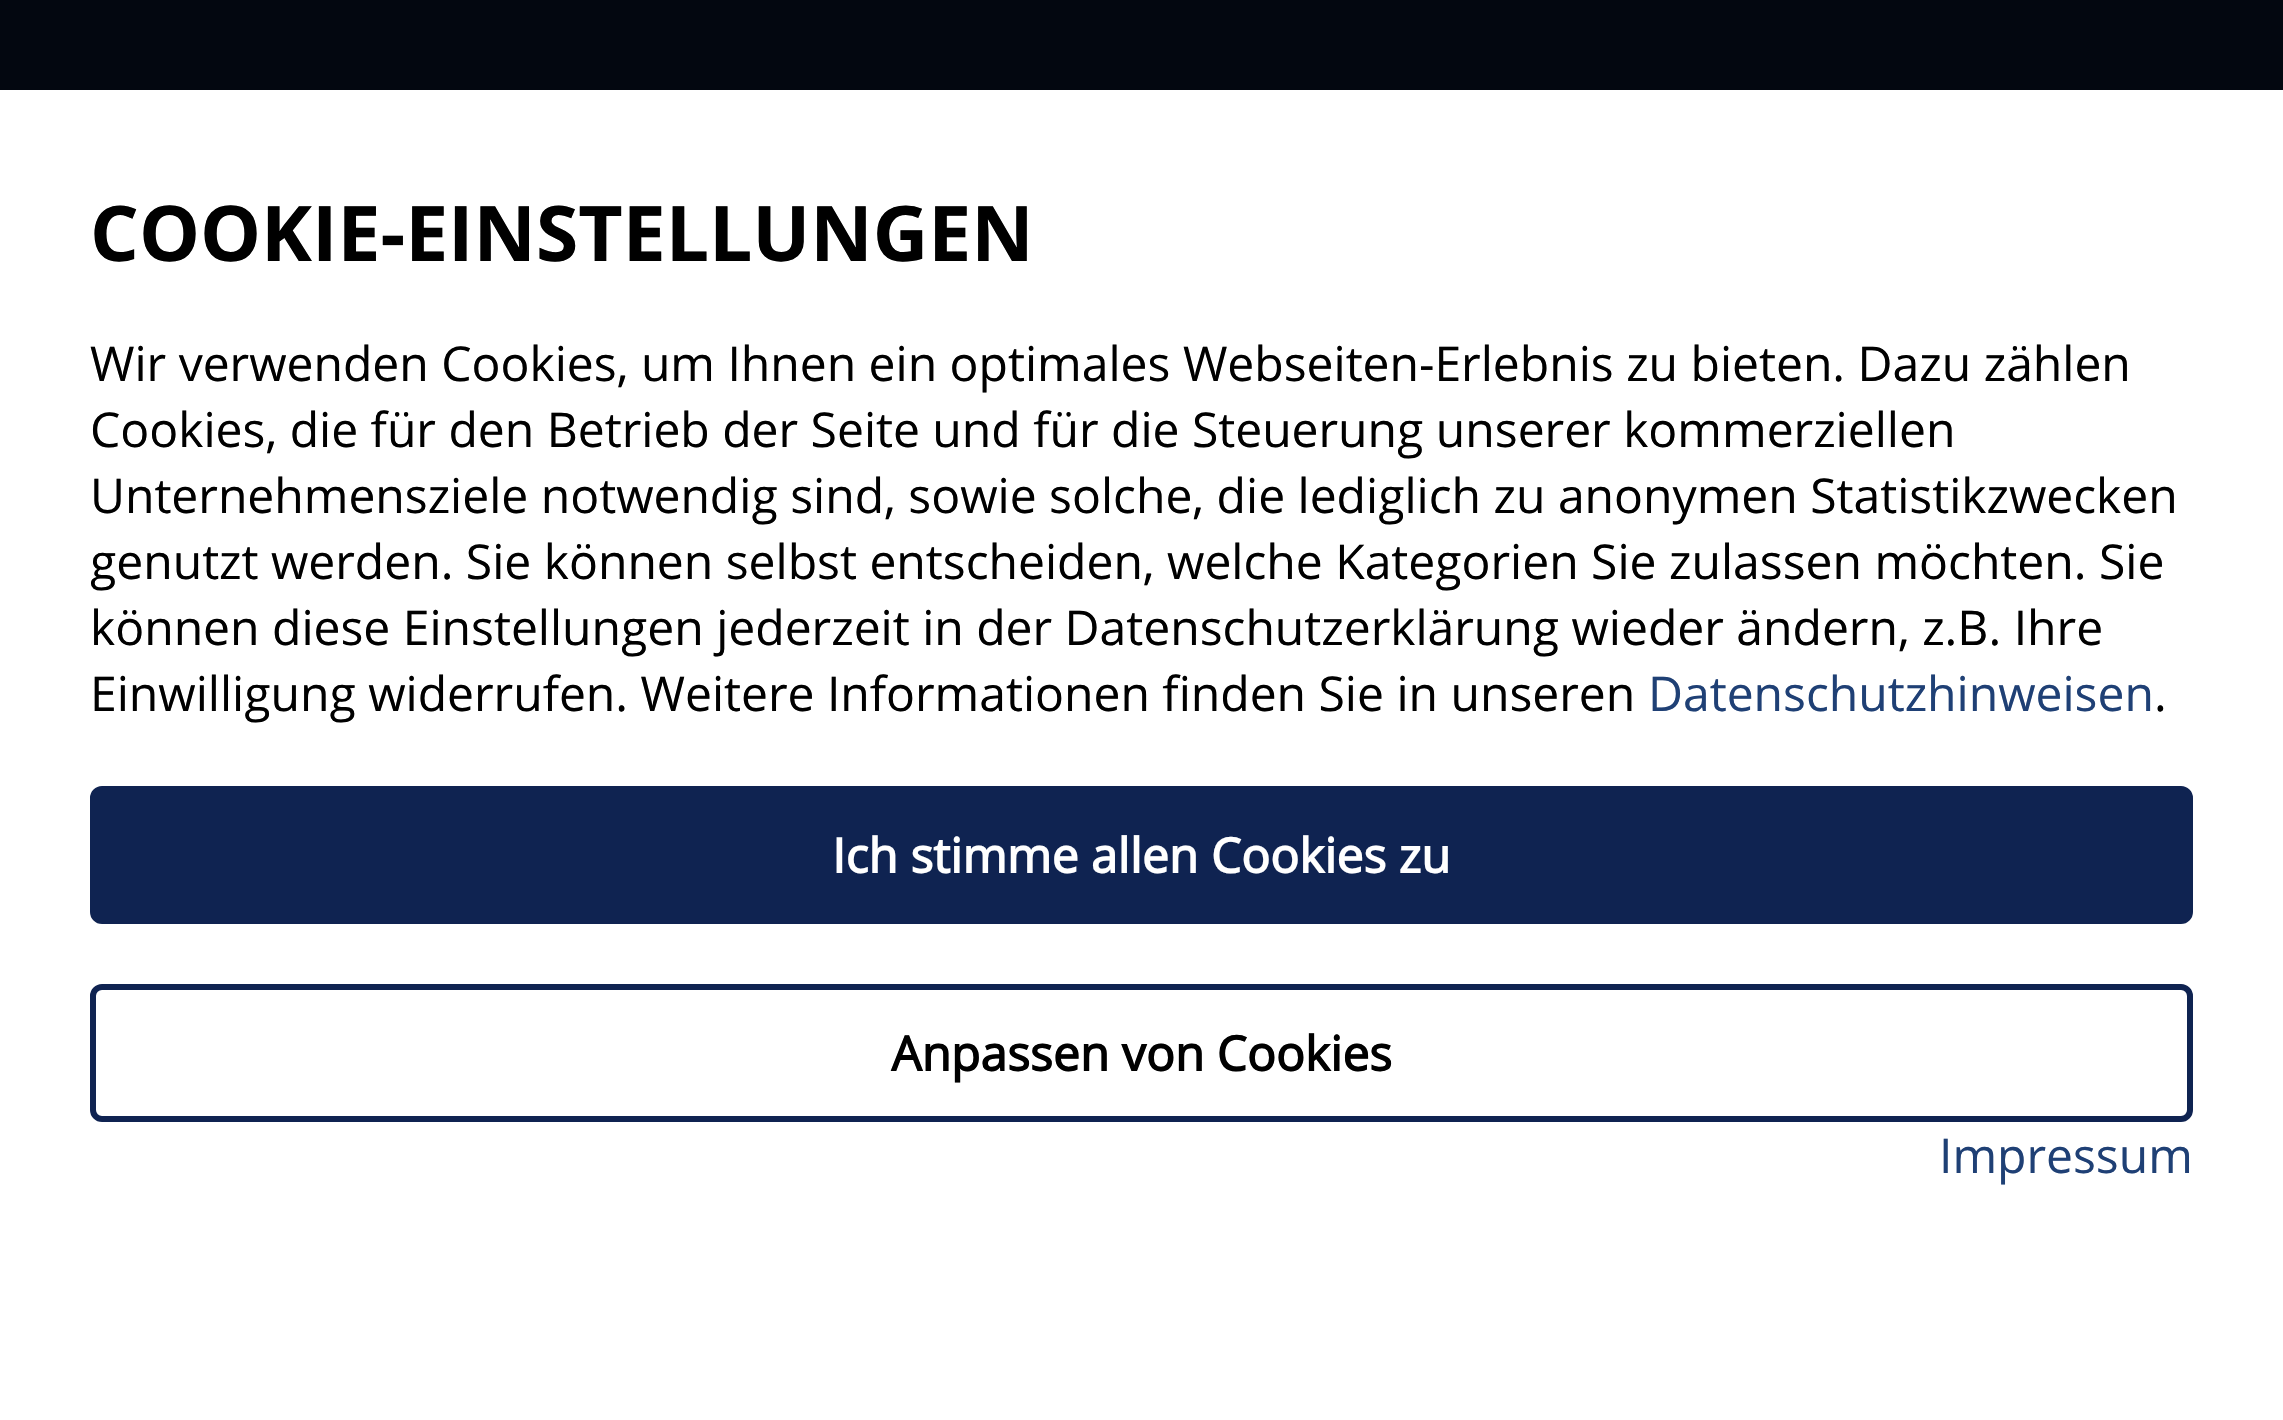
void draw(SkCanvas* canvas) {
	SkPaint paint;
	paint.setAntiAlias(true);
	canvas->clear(0xff030710);
	paint.setColor(0xffffffff);
	canvas->drawRect(SkRect::MakeXYWH(0, 90, 2283, 1330), paint);
	SkFont f1(fontMgr->matchFamilyStyle("Open Sans", SkFontStyle::Bold()), 76.75);
	f1.setSubpixel(true);
	paint.setColor(0xff000000);
	canvas->drawString("COOKIE-EINSTELLUNGEN", 90, 261, f1, paint);
	SkFont f2(fontMgr->matchFamilyStyle("Open Sans", SkFontStyle::Normal()), 48);
	f2.setSubpixel(true);
	canvas->drawString("Wir verwenden Cookies, um Ihnen ein optimales Webseiten-Erlebnis zu bieten. Dazu zählen", 90, 381, f2, paint);
	canvas->drawString("Cookies, die für den Betrieb der Seite und für die Steuerung unserer kommerziellen", 90, 447, f2, paint);
	canvas->drawString("Unternehmensziele notwendig sind, sowie solche, die lediglich zu anonymen Statistikzwecken", 90, 513, f2, paint);
	canvas->drawString("genutzt werden. Sie können selbst entscheiden, welche Kategorien Sie zulassen möchten. Sie", 90, 579, f2, paint);
	canvas->drawString("können diese Einstellungen jederzeit in der Datenschutzerklärung wieder ändern, z.B. Ihre", 90, 645, f2, paint);
	canvas->drawString("Einwilligung widerrufen. Weitere Informationen finden Sie in unseren", 90, 711, f2, paint);
	paint.setColor(0xff1f4075);
	canvas->drawString("Datenschutzhinweisen", 1648, 711, f2, paint);
	paint.setColor(0xff000000);
	canvas->drawString(".", 2154, 711, f2, paint);
	paint.setColor(0xff0f2351);
	canvas->drawRoundRect(SkRect::MakeXYWH(93, 789, 2097, 132), 9, 9, paint);
	paint.setStroke(true);
	paint.setStrokeWidth(6);
	canvas->drawRoundRect(SkRect::MakeXYWH(93, 789, 2097, 132), 9, 9, paint);
	SkFont f3(fontMgr->matchFamilyStyle("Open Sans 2", SkFontStyle::Bold()), 48);
	f3.setSubpixel(true);
	paint.setStroke(false);
	paint.setColor(0xffffffff);
	canvas->drawString("Ich stimme allen Cookies zu", 832, 873, f3, paint);
	paint.setStroke(true);
	paint.setColor(0xff0f2351);
	canvas->drawRoundRect(SkRect::MakeXYWH(93, 987, 2097, 132), 9, 9, paint);
	paint.setStroke(false);
	paint.setColor(0xff000000);
	canvas->drawString("Anpassen von Cookies", 891, 1071, f3, paint);
	paint.setColor(0xff1f4075);
	canvas->drawString("Impressum", 1939, 1173, f2, paint);
}
